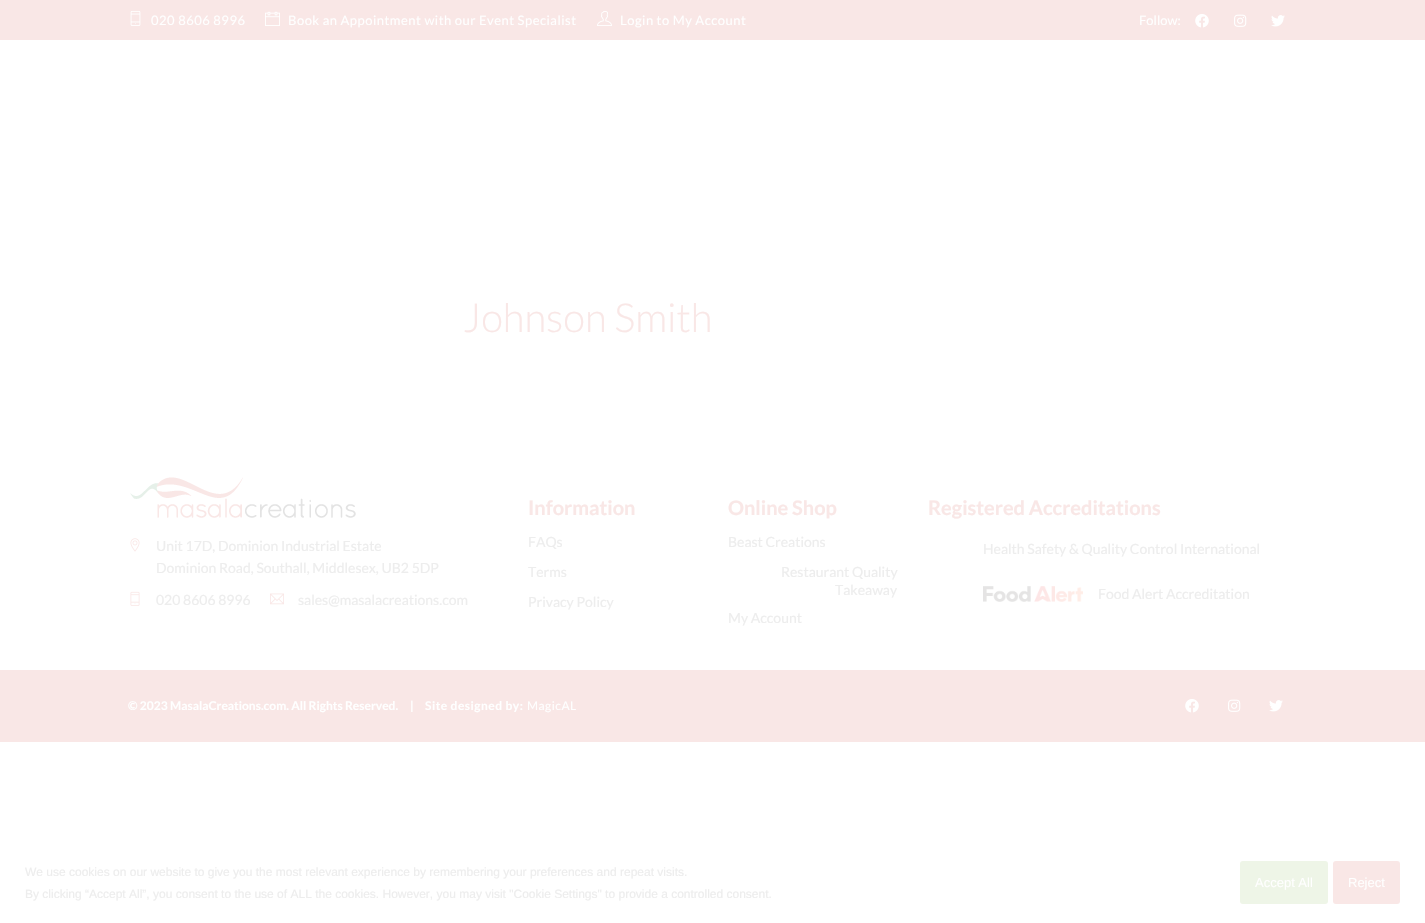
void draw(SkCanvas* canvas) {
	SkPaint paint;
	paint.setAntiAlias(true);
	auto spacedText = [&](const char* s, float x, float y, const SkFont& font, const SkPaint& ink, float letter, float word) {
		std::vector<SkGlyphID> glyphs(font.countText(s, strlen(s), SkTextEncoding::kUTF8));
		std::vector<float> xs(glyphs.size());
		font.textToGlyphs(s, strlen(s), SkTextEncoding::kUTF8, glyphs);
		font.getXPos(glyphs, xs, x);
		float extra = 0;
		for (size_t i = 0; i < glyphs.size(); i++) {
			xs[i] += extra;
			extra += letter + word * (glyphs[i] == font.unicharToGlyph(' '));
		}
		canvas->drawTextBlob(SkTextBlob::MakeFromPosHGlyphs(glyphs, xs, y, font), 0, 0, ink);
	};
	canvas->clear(0xffffffff);
	paint.setColor(0xfff9e7e6);
	canvas->drawRect(SkRect::MakeXYWH(0, 0, 1425, 40), paint);
	canvas->drawImageRect(SkImages::DeferredFromEncodedData(SkData::MakeFromFileName("img1.png")), SkRect::MakeXYWH(130, 10, 11, 16), SkSamplingOptions());
	SkFont f1(fontMgr->matchFamilyStyle("Lato", SkFontStyle::Normal()), 13);
	f1.setSubpixel(true);
	paint.setColor(0xffffffff);
	spacedText("020 8606 8996", 151, 25, f1, paint, 0.5, 0);
	canvas->drawImageRect(SkImages::DeferredFromEncodedData(SkData::MakeFromFileName("img2.png")), SkRect::MakeXYWH(265, 11, 15, 15), SkSamplingOptions());
	spacedText("Book an Appointment with our Event Specialist", 288, 25, f1, paint, 0.5, 0);
	canvas->drawImageRect(SkImages::DeferredFromEncodedData(SkData::MakeFromFileName("img3.png")), SkRect::MakeXYWH(597, 10, 15, 16), SkSamplingOptions());
	spacedText("Login to My Account", 620, 25, f1, paint, 0.5, 0);
	canvas->drawString("Follow:", 1139, 25, f1, paint);
	canvas->drawImageRect(SkImages::DeferredFromEncodedData(SkData::MakeFromFileName("img4.png")), SkRect::MakeXYWH(1195, 14, 14, 14), SkSamplingOptions());
	canvas->drawImageRect(SkImages::DeferredFromEncodedData(SkData::MakeFromFileName("img5.png")), SkRect::MakeXYWH(1234, 14, 13, 13), SkSamplingOptions());
	canvas->drawImageRect(SkImages::DeferredFromEncodedData(SkData::MakeFromFileName("img6.png")), SkRect::MakeXYWH(1271, 15, 14, 12), SkSamplingOptions());
	SkFont f2(fontMgr->matchFamilyStyle("Lato", SkFontStyle(300, SkFontStyle::kNormal_Width, SkFontStyle::kUpright_Slant)), 40);
	f2.setSubpixel(true);
	paint.setColor(0xfff9e7e6);
	canvas->drawString("Johnson Smith", 463, 332, f2, paint);
	canvas->drawImageRect(SkImages::DeferredFromEncodedData(SkData::MakeFromFileName("img7.png")), SkRect::MakeXYWH(130, 477, 226, 41), SkSamplingOptions());
	canvas->drawImageRect(SkImages::DeferredFromEncodedData(SkData::MakeFromFileName("img8.png")), SkRect::MakeXYWH(130, 538, 10, 14), SkSamplingOptions());
	SkFont f3(fontMgr->matchFamilyStyle("Lato", SkFontStyle::Normal()), 14);
	f3.setSubpixel(true);
	paint.setColor(0xffededed);
	canvas->drawString("Unit 17D, Dominion Industrial Estate", 156, 551, f3, paint);
	canvas->drawString("Dominion Road, Southall, Middlesex, UB2 5DP", 156, 573, f3, paint);
	canvas->drawImageRect(SkImages::DeferredFromEncodedData(SkData::MakeFromFileName("img9.png")), SkRect::MakeXYWH(130, 591, 10, 15), SkSamplingOptions());
	canvas->drawString("020 8606 8996", 156, 605, f3, paint);
	canvas->drawImageRect(SkImages::DeferredFromEncodedData(SkData::MakeFromFileName("img10.png")), SkRect::MakeXYWH(270, 593, 14, 12), SkSamplingOptions());
	canvas->drawString("sales@masalacreations.com", 298, 605, f3, paint);
	SkFont f4(fontMgr->matchFamilyStyle("Lato", SkFontStyle::Bold()), 20);
	f4.setSubpixel(true);
	paint.setColor(0xfff9e7e6);
	canvas->drawString("Information", 528, 515, f4, paint);
	paint.setColor(0xffededed);
	canvas->drawString("FAQs", 528, 547, f3, paint);
	canvas->drawString("Terms", 528, 577, f3, paint);
	canvas->drawString("Privacy Policy", 528, 607, f3, paint);
	paint.setColor(0xfff9e7e6);
	canvas->drawString("Online Shop", 728, 515, f4, paint);
	paint.setColor(0xffededed);
	canvas->drawString("Beast Creations", 728, 547, f3, paint);
	canvas->drawString("Restaurant Quality", 781, 577, f3, paint);
	canvas->drawString("Takeaway", 835, 595, f3, paint);
	canvas->drawString("My Account", 728, 623, f3, paint);
	paint.setColor(0xfff9e7e6);
	canvas->drawString("Registered Accreditations", 928, 515, f4, paint);
	paint.setColor(0xffededed);
	canvas->drawString("Health Safety & Quality Control International", 983, 554, f3, paint);
	canvas->drawImageRect(SkImages::DeferredFromEncodedData(SkData::MakeFromFileName("img11.png")), SkRect::MakeXYWH(983, 586, 100, 16), SkSamplingOptions());
	canvas->drawString("Food Alert Accreditation", 1098, 599, f3, paint);
	paint.setColor(0xfff9e7e6);
	canvas->drawRect(SkRect::MakeXYWH(0, 670, 1425, 72), paint);
	SkFont f5(fontMgr->matchFamilyStyle("Lato", SkFontStyle::Bold()), 12);
	f5.setSubpixel(true);
	paint.setColor(0xffffffff);
	canvas->drawString("© 2023 MasalaCreations.com. All Rights Reserved.", 128, 710, f5, paint);
	spacedText("|", 410, 710, f5, paint, 0.5, 0);
	spacedText("Site designed by:", 425, 710, f5, paint, 0.5, 0);
	SkFont f6(fontMgr->matchFamilyStyle("Lato", SkFontStyle::Normal()), 12);
	f6.setSubpixel(true);
	spacedText("MagicAL", 527, 710, f6, paint, 0.5, 0);
	canvas->drawImageRect(SkImages::DeferredFromEncodedData(SkData::MakeFromFileName("img4.png")), SkRect::MakeXYWH(1185, 699, 14, 14), SkSamplingOptions());
	canvas->drawImageRect(SkImages::DeferredFromEncodedData(SkData::MakeFromFileName("img5.png")), SkRect::MakeXYWH(1228, 699, 13, 13), SkSamplingOptions());
	canvas->drawImageRect(SkImages::DeferredFromEncodedData(SkData::MakeFromFileName("img6.png")), SkRect::MakeXYWH(1269, 700, 14, 12), SkSamplingOptions());
	SkFont f7(fontMgr->matchFamilyStyle("Liberation Sans", SkFontStyle::Normal()), 12);
	f7.setSubpixel(true);
	paint.setColor(0xffededed);
	canvas->drawString("We use cookies on our website to give you the most relevant experience by remembering your preferences and repeat visits.", 25, 876, f7, paint);
	canvas->drawString("By clicking “Accept All”, you consent to the use of ALL the cookies. However, you may visit \"Cookie Settings\" to provide a controlled consent.", 25, 898, f7, paint);
	paint.setColor(0xffeef5e7);
	canvas->drawRoundRect(SkRect::MakeXYWH(1240, 861, 88, 43), 3, 3, paint);
	SkFont f8(fontMgr->matchFamilyStyle("Liberation Sans", SkFontStyle::Normal()), 13);
	f8.setSubpixel(true);
	paint.setColor(0xffffffff);
	canvas->drawString("Accept All", 1255, 887, f8, paint);
	paint.setColor(0xfff9e7e6);
	canvas->drawRoundRect(SkRect::MakeXYWH(1333, 861, 67, 43), 3, 3, paint);
	paint.setColor(0xffffffff);
	canvas->drawString("Reject", 1348, 887, f8, paint);
}
